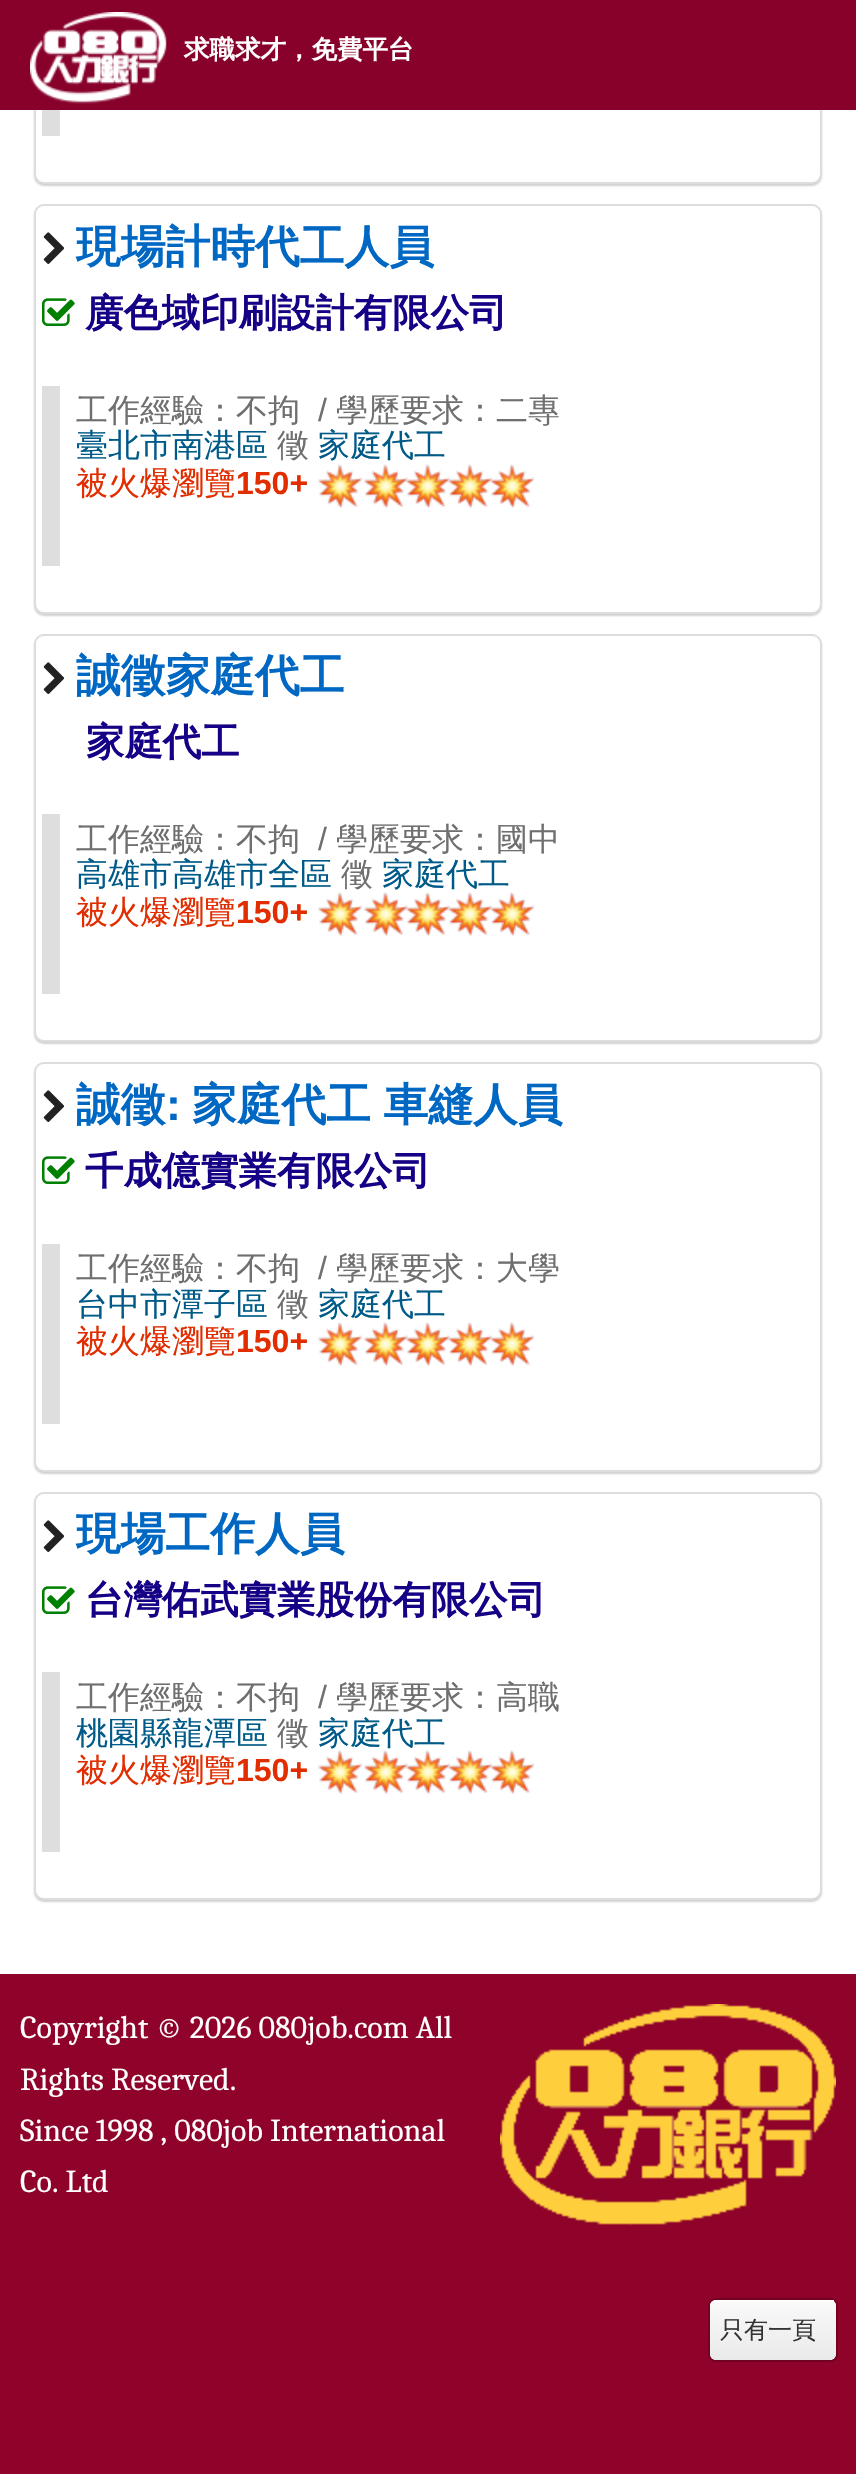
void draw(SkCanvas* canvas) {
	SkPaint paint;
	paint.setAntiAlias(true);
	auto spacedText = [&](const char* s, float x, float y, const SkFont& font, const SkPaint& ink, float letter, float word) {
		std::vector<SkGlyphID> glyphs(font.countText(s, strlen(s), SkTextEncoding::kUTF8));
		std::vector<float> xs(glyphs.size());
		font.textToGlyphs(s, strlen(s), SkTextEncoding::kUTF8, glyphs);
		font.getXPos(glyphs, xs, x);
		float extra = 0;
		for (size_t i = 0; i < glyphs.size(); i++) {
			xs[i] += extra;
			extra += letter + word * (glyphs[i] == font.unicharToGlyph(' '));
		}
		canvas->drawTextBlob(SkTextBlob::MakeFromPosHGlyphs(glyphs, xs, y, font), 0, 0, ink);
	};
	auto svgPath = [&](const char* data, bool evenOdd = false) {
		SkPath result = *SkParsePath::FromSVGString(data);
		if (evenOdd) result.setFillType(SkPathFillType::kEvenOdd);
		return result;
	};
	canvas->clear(0xffffffff);
	paint.setColor(0x4d646464);
	paint.setMaskFilter(SkMaskFilter::MakeBlur(kNormal_SkBlurStyle, 1));
	canvas->drawRoundRect(SkRect::MakeXYWH(34, -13, 788, 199), 10, 10, paint);
	paint.setMaskFilter(nullptr);
	paint.setColor(0xffffffff);
	canvas->drawRoundRect(SkRect::MakeXYWH(35, -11, 786, 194), 9, 9, paint);
	paint.setStroke(true);
	paint.setStrokeWidth(2);
	paint.setColor(0xffdddddd);
	canvas->drawRoundRect(SkRect::MakeXYWH(35, -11, 786, 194), 9, 9, paint);
	paint.setStroke(false);
	paint.setColor(0xff88012b);
	canvas->drawRect(SkRect::MakeXYWH(0, 0, 856, 110), paint);
	canvas->drawImageRect(SkImages::DeferredFromEncodedData(SkData::MakeFromFileName("img1.png")), SkRect::MakeXYWH(30, 12, 137, 92), SkSamplingOptions());
	SkFont f1(fontMgr->matchFamilyStyle("WenQuanYi Zen Hei", SkFontStyle::Bold()), 25.5);
	f1.setSubpixel(true);
	paint.setColor(0xffffffff);
	canvas->drawString("求職求才，免費平台", 184, 58, f1, paint);
	paint.setColor(0xffdedede);
	canvas->drawRect(SkRect::MakeXYWH(42, 110, 18, 26), paint);
	paint.setColor(0x4d646464);
	paint.setMaskFilter(SkMaskFilter::MakeBlur(kNormal_SkBlurStyle, 1));
	canvas->drawRoundRect(SkRect::MakeXYWH(34, 206, 788, 410), 10, 10, paint);
	paint.setMaskFilter(nullptr);
	paint.setColor(0xffffffff);
	canvas->drawRoundRect(SkRect::MakeXYWH(35, 205, 786, 408), 9, 9, paint);
	paint.setStroke(true);
	paint.setColor(0xffdddddd);
	canvas->drawRoundRect(SkRect::MakeXYWH(35, 205, 786, 408), 9, 9, paint);
	canvas->drawImageRect(SkImages::DeferredFromEncodedData(SkData::MakeFromFileName("img2.png")), SkRect::MakeXYWH(43, 232, 22, 32), SkSamplingOptions());
	SkFont f2(fontMgr->matchFamilyStyle("WenQuanYi Zen Hei", SkFontStyle::Bold()), 44.75);
	f2.setSubpixel(true);
	paint.setStroke(false);
	paint.setColor(0xff0068c3);
	canvas->drawString("現場計時代工人員", 76, 262, f2, paint);
	canvas->drawImageRect(SkImages::DeferredFromEncodedData(SkData::MakeFromFileName("img3.png")), SkRect::MakeXYWH(42, 298, 33, 28), SkSamplingOptions());
	SkFont f3(fontMgr->matchFamilyStyle("WenQuanYi Zen Hei", SkFontStyle::Bold()), 38.4);
	f3.setSubpixel(true);
	paint.setColor(0xff150185);
	canvas->drawString("廣色域印刷設計有限公司", 85, 326, f3, paint);
	paint.setColor(0xffdedede);
	canvas->drawRect(SkRect::MakeXYWH(42, 386, 18, 180), paint);
	SkFont f4(fontMgr->matchFamilyStyle("WenQuanYi Zen Hei", SkFontStyle(500, SkFontStyle::kNormal_Width, SkFontStyle::kUpright_Slant)), 32);
	f4.setSubpixel(true);
	paint.setColor(0xff6f6f6f);
	canvas->drawString("工作經驗：不拘", 76, 421, f4, paint);
	SkFont f5(fontMgr->matchFamilyStyle("Liberation Sans", SkFontStyle::Normal()), 32);
	f5.setSubpixel(true);
	canvas->drawString("/", 318, 421, f5, paint);
	canvas->drawString("學歷要求：二專", 336, 421, f4, paint);
	paint.setColor(0xff005a87);
	canvas->drawString("臺北市南港區", 76, 456, f4, paint);
	paint.setColor(0xff6f6f6f);
	canvas->drawString("徵", 277, 456, f4, paint);
	paint.setColor(0xff005a87);
	canvas->drawString("家庭代工", 318, 456, f4, paint);
	paint.setColor(0xffe12d00);
	canvas->drawString("被火爆瀏覽", 76, 494, f4, paint);
	SkFont f6(fontMgr->matchFamilyStyle("Liberation Sans", SkFontStyle::Bold()), 32);
	f6.setSubpixel(true);
	canvas->drawString("150+", 236, 494, f6, paint);
	canvas->drawImageRect(SkImages::DeferredFromEncodedData(SkData::MakeFromFileName("img4.png")), SkRect::MakeXYWH(318, 464, 216, 44), SkSamplingOptions());
	paint.setColor(0x4d646464);
	paint.setMaskFilter(SkMaskFilter::MakeBlur(kNormal_SkBlurStyle, 1));
	canvas->drawRoundRect(SkRect::MakeXYWH(34, 636, 788, 408), 10, 10, paint);
	paint.setMaskFilter(nullptr);
	paint.setColor(0xffffffff);
	canvas->drawRoundRect(SkRect::MakeXYWH(35, 635, 786, 406), 9, 9, paint);
	paint.setStroke(true);
	paint.setColor(0xffdddddd);
	canvas->drawRoundRect(SkRect::MakeXYWH(35, 635, 786, 406), 9, 9, paint);
	canvas->drawImageRect(SkImages::DeferredFromEncodedData(SkData::MakeFromFileName("img2.png")), SkRect::MakeXYWH(43, 662, 22, 32), SkSamplingOptions());
	paint.setStroke(false);
	paint.setColor(0xff0068c3);
	canvas->drawString("誠徵家庭代工", 76, 691, f2, paint);
	paint.setColor(0xff150185);
	canvas->drawString("家庭代工", 86, 755, f3, paint);
	paint.setColor(0xffdedede);
	canvas->drawRect(SkRect::MakeXYWH(42, 814, 18, 180), paint);
	paint.setColor(0xff6f6f6f);
	canvas->drawString("工作經驗：不拘", 76, 850, f4, paint);
	canvas->drawString("/", 318, 850, f5, paint);
	canvas->drawString("學歷要求：國中", 336, 850, f4, paint);
	paint.setColor(0xff005a87);
	canvas->drawString("高雄市高雄市全區", 76, 885, f4, paint);
	paint.setColor(0xff6f6f6f);
	canvas->drawString("徵", 341, 885, f4, paint);
	paint.setColor(0xff005a87);
	canvas->drawString("家庭代工", 382, 885, f4, paint);
	paint.setColor(0xffe12d00);
	canvas->drawString("被火爆瀏覽", 76, 923, f4, paint);
	canvas->drawString("150+", 236, 923, f6, paint);
	canvas->drawImageRect(SkImages::DeferredFromEncodedData(SkData::MakeFromFileName("img4.png")), SkRect::MakeXYWH(318, 892, 216, 44), SkSamplingOptions());
	paint.setColor(0x4d646464);
	paint.setMaskFilter(SkMaskFilter::MakeBlur(kNormal_SkBlurStyle, 1));
	canvas->drawRoundRect(SkRect::MakeXYWH(34, 1064, 788, 410), 10, 10, paint);
	paint.setMaskFilter(nullptr);
	paint.setColor(0xffffffff);
	canvas->drawRoundRect(SkRect::MakeXYWH(35, 1063, 786, 408), 9, 9, paint);
	paint.setStroke(true);
	paint.setColor(0xffdddddd);
	canvas->drawRoundRect(SkRect::MakeXYWH(35, 1063, 786, 408), 9, 9, paint);
	canvas->drawImageRect(SkImages::DeferredFromEncodedData(SkData::MakeFromFileName("img2.png")), SkRect::MakeXYWH(43, 1090, 22, 32), SkSamplingOptions());
	paint.setStroke(false);
	paint.setColor(0xff0068c3);
	canvas->drawString("誠徵", 76, 1120, f2, paint);
	SkFont f7(fontMgr->matchFamilyStyle("Liberation Sans", SkFontStyle::Bold()), 44.75);
	f7.setSubpixel(true);
	canvas->drawString(":", 166, 1120, f7, paint);
	spacedText("家庭代工 車縫人員", 192, 1120, f2, paint, 0, -1);
	canvas->drawImageRect(SkImages::DeferredFromEncodedData(SkData::MakeFromFileName("img3.png")), SkRect::MakeXYWH(42, 1156, 33, 28), SkSamplingOptions());
	paint.setColor(0xff150185);
	canvas->drawString("千成億實業有限公司", 85, 1184, f3, paint);
	paint.setColor(0xffdedede);
	canvas->drawRect(SkRect::MakeXYWH(42, 1244, 18, 180), paint);
	paint.setColor(0xff6f6f6f);
	canvas->drawString("工作經驗：不拘", 76, 1279, f4, paint);
	canvas->drawString("/", 318, 1279, f5, paint);
	canvas->drawString("學歷要求：大學", 336, 1279, f4, paint);
	paint.setColor(0xff005a87);
	canvas->drawString("台中市潭子區", 76, 1315, f4, paint);
	paint.setColor(0xff6f6f6f);
	canvas->drawString("徵", 277, 1315, f4, paint);
	paint.setColor(0xff005a87);
	canvas->drawString("家庭代工", 318, 1315, f4, paint);
	paint.setColor(0xffe12d00);
	canvas->drawString("被火爆瀏覽", 76, 1352, f4, paint);
	canvas->drawString("150+", 236, 1352, f6, paint);
	canvas->drawImageRect(SkImages::DeferredFromEncodedData(SkData::MakeFromFileName("img4.png")), SkRect::MakeXYWH(318, 1322, 216, 44), SkSamplingOptions());
	paint.setColor(0x4d646464);
	paint.setMaskFilter(SkMaskFilter::MakeBlur(kNormal_SkBlurStyle, 1));
	canvas->drawRoundRect(SkRect::MakeXYWH(34, 1494, 788, 408), 10, 10, paint);
	paint.setMaskFilter(nullptr);
	paint.setColor(0xffffffff);
	canvas->drawRoundRect(SkRect::MakeXYWH(35, 1493, 786, 406), 9, 9, paint);
	paint.setStroke(true);
	paint.setColor(0xffdddddd);
	canvas->drawRoundRect(SkRect::MakeXYWH(35, 1493, 786, 406), 9, 9, paint);
	canvas->drawImageRect(SkImages::DeferredFromEncodedData(SkData::MakeFromFileName("img2.png")), SkRect::MakeXYWH(43, 1520, 22, 32), SkSamplingOptions());
	paint.setStroke(false);
	paint.setColor(0xff0068c3);
	canvas->drawString("現場工作人員", 76, 1549, f2, paint);
	canvas->drawImageRect(SkImages::DeferredFromEncodedData(SkData::MakeFromFileName("img3.png")), SkRect::MakeXYWH(42, 1586, 33, 28), SkSamplingOptions());
	paint.setColor(0xff150185);
	canvas->drawString("台灣佑武實業股份有限公司", 85, 1613, f3, paint);
	paint.setColor(0xffdedede);
	canvas->drawRect(SkRect::MakeXYWH(42, 1672, 18, 180), paint);
	paint.setColor(0xff6f6f6f);
	canvas->drawString("工作經驗：不拘", 76, 1708, f4, paint);
	canvas->drawString("/", 318, 1708, f5, paint);
	canvas->drawString("學歷要求：高職", 336, 1708, f4, paint);
	paint.setColor(0xff005a87);
	canvas->drawString("桃園縣龍潭區", 76, 1744, f4, paint);
	paint.setColor(0xff6f6f6f);
	canvas->drawString("徵", 277, 1744, f4, paint);
	paint.setColor(0xff005a87);
	canvas->drawString("家庭代工", 318, 1744, f4, paint);
	paint.setColor(0xffe12d00);
	canvas->drawString("被火爆瀏覽", 76, 1781, f4, paint);
	canvas->drawString("150+", 236, 1781, f6, paint);
	canvas->drawImageRect(SkImages::DeferredFromEncodedData(SkData::MakeFromFileName("img4.png")), SkRect::MakeXYWH(318, 1750, 216, 44), SkSamplingOptions());
	paint.setColor(0xff8f022a);
	canvas->drawRect(SkRect::MakeXYWH(0, 1974, 856, 500), paint);
	SkFont f8(fontMgr->matchFamilyStyle("Caladea", SkFontStyle::Normal()), 32);
	f8.setSubpixel(true);
	paint.setColor(0xffffffff);
	canvas->drawString("Copyright © 2026 080job.com All", 20, 2038, f8, paint);
	canvas->drawImageRect(SkImages::DeferredFromEncodedData(SkData::MakeFromFileName("img5.png")), SkRect::MakeXYWH(500, 2004, 336, 222), SkSamplingOptions());
	canvas->drawString("Rights Reserved.", 20, 2090, f8, paint);
	canvas->drawString("Since 1998 , 080job International", 20, 2141, f8, paint);
	canvas->drawString("Co. Ltd", 20, 2192, f8, paint);
	paint.setStroke(true);
	paint.setColor(0xff720222);
	canvas->drawRoundRect(SkRect::MakeXYWH(709, 2299, 128, 62), 7, 7, paint);
	paint.setStroke(false);
	paint.setColor(0xfff5f5f5);
	canvas->drawRoundRect(SkRect::MakeXYWH(710, 2300, 126, 60), 6, 6, paint);
	canvas->save();
	canvas->clipPath(svgPath("M716 2300H830C833.5 2300 836 2302.5 836 2306V2354C836 2357.5 833.5 2360 830 2360H716C712.5 2360 710 2357.5 710 2354V2306C710 2302.5 712.5 2300 716 2300Z"), true);
	{
		const SkColor colors[] = {0xfff9f9f9, 0xffeaeaea};
		const float stops[] = {0, 1};
		const SkPoint ends[] = {{773, 2244}, {773, 2302}};
		paint.setShader(SkGradientShader::MakeLinear(ends, colors, stops, 2, SkTileMode::kClamp));
		paint.setAlpha(255);
	}
	canvas->drawRect(SkRect::MakeXYWH(710, 2300, 126, 2), paint);
	{
		const SkColor colors[] = {0xfff9f9f9, 0xffeaeaea};
		const float stops[] = {0, 1};
		const SkPoint ends[] = {{773, 2302}, {773, 2360}};
		paint.setShader(SkGradientShader::MakeLinear(ends, colors, stops, 2, SkTileMode::kClamp));
		paint.setAlpha(255);
	}
	canvas->drawPath(svgPath("M710 2302H836V2354C836 2357.5 833.5 2360 830 2360H716C712.5 2360 710 2357.5 710 2354Z"), paint);
	canvas->restore();
	paint.setShader(nullptr);
	paint.setColor(0xffffffff);
	canvas->drawRect(SkRect::MakeXYWH(714, 2300, 120, 2), paint);
	SkFont f9(fontMgr->matchFamilyStyle("WenQuanYi Zen Hei", SkFontStyle(500, SkFontStyle::kNormal_Width, SkFontStyle::kUpright_Slant)), 24);
	f9.setSubpixel(true);
	paint.setColor(0xff333333);
	canvas->drawString("只有一頁", 720, 2338, f9, paint);
}
